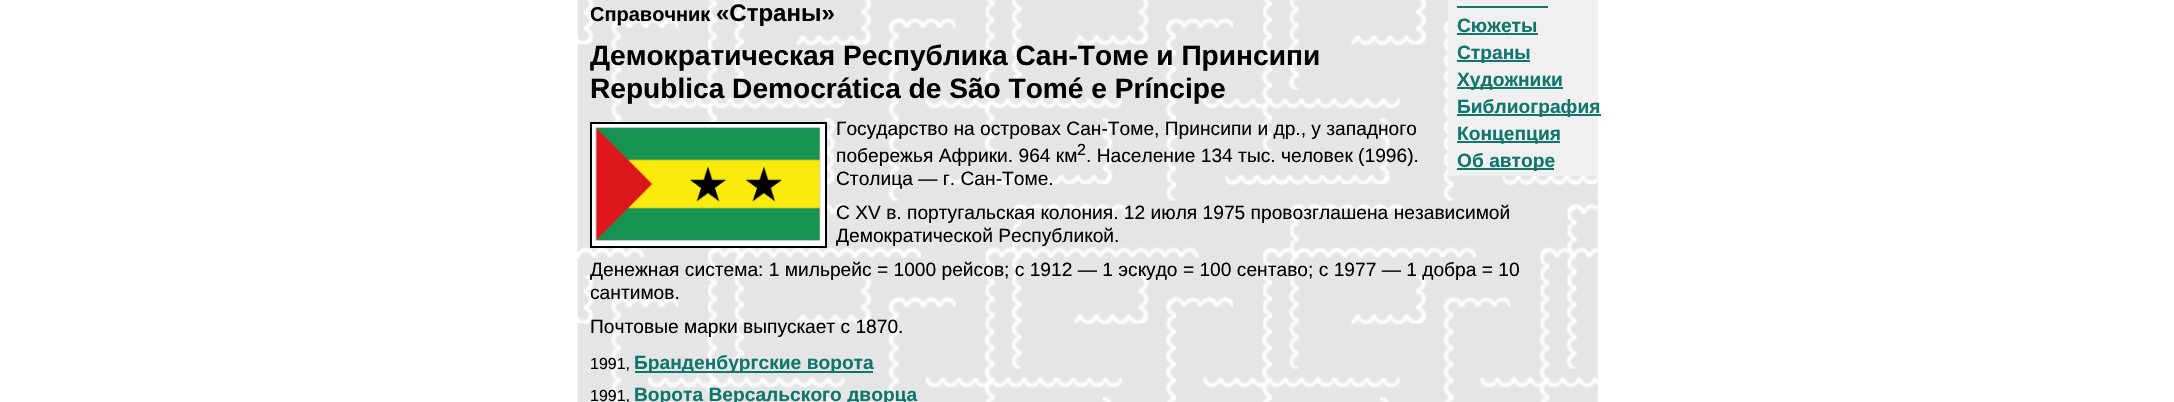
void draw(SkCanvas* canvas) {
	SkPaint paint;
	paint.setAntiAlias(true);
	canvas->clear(0xffffffff);
	paint.setColor(0xffe5e5e5);
	canvas->drawRect(SkRect::MakeXYWH(1597, 176, 1, 226), paint);
	canvas->drawImageRect(SkImages::DeferredFromEncodedData(SkData::MakeFromFileName("img1.png")), SkRect::MakeXYWH(577, 0, 1021, 402), SkSamplingOptions());
	SkFont f1(fontMgr->matchFamilyStyle("Liberation Sans", SkFontStyle::Bold()), 20);
	f1.setSubpixel(true);
	paint.setColor(0xff000000);
	canvas->drawString("Справочник", 590, 21, f1, paint);
	SkFont f2(fontMgr->matchFamilyStyle("Liberation Sans", SkFontStyle::Bold()), 24);
	f2.setSubpixel(true);
	canvas->drawString("«Страны»", 716, 21, f2, paint);
	SkFont f3(fontMgr->matchFamilyStyle("Liberation Sans", SkFontStyle::Bold()), 28.1);
	f3.setSubpixel(true);
	canvas->drawString("Демократическая Республика Сан-Томе и Принсипи", 590, 65, f3, paint);
	canvas->drawString("Republica Democrática de São Tomé e Príncipe", 590, 98, f3, paint);
	paint.setColor(0xffffffff);
	canvas->drawRect(SkRect::MakeXYWH(591, 123, 235, 124), paint);
	paint.setStroke(true);
	paint.setStrokeWidth(2);
	paint.setColor(0xff000000);
	canvas->drawRect(SkRect::MakeXYWH(591, 123, 235, 124), paint);
	canvas->drawImageRect(SkImages::DeferredFromEncodedData(SkData::MakeFromFileName("img2.png")), SkRect::MakeXYWH(595, 127, 226, 114), SkSamplingOptions());
	SkFont f4(fontMgr->matchFamilyStyle("Liberation Sans", SkFontStyle::Normal()), 19.2);
	f4.setSubpixel(true);
	paint.setStroke(false);
	canvas->drawString("Государство на островах Сан-Томе, Принсипи и др., у западного", 836, 135, f4, paint);
	canvas->drawString("побережья Африки. 964 км", 836, 162, f4, paint);
	SkFont f5(fontMgr->matchFamilyStyle("Liberation Sans", SkFontStyle::Normal()), 16);
	f5.setSubpixel(true);
	canvas->drawString("2", 1077, 155, f5, paint);
	canvas->drawString(". Население 134 тыс. человек (1996).", 1086, 162, f4, paint);
	canvas->drawString("Столица — г. Сан-Томе.", 836, 185, f4, paint);
	canvas->drawString("С XV в. португальская колония. 12 июля 1975 провозглашена независимой", 836, 219, f4, paint);
	canvas->drawString("Демократической Республикой.", 836, 242, f4, paint);
	canvas->drawString("Денежная система: 1 мильрейс = 1000 рейсов; с 1912 — 1 эскудо = 100 сентаво; с 1977 — 1 добра = 10", 590, 276, f4, paint);
	canvas->drawString("сантимов.", 590, 299, f4, paint);
	canvas->drawString("Почтовые марки выпускает с 1870.", 590, 333, f4, paint);
	canvas->drawString("1991,", 590, 369, f5, paint);
	paint.setColor(0xff10756c);
	canvas->drawRect(SkRect::MakeXYWH(635, 371, 238, 2), paint);
	SkFont f6(fontMgr->matchFamilyStyle("Liberation Sans", SkFontStyle::Bold()), 19.2);
	f6.setSubpixel(true);
	canvas->drawString("Бранденбургские ворота", 634, 369, f6, paint);
	paint.setColor(0xff000000);
	canvas->drawString("1991,", 590, 401, f5, paint);
	paint.setColor(0xff10756c);
	canvas->drawString("Ворота Версальского дворца", 634, 401, f6, paint);
	paint.setColor(0xfff0f0f0);
	canvas->drawRect(SkRect::MakeXYWH(1448, 0, 150, 176), paint);
	paint.setColor(0xff10756c);
	canvas->drawRect(SkRect::MakeXYWH(1457, 6, 91, 2), paint);
	canvas->drawString("Сюжеты", 1457, 32, f6, paint);
	canvas->drawRect(SkRect::MakeXYWH(1457, 33, 81, 2), paint);
	canvas->drawRect(SkRect::MakeXYWH(1457, 60, 73, 2), paint);
	canvas->drawString("Страны", 1457, 59, f6, paint);
	canvas->drawRect(SkRect::MakeXYWH(1457, 87, 106, 2), paint);
	canvas->drawString("Художники", 1457, 86, f6, paint);
	canvas->drawRect(SkRect::MakeXYWH(1457, 114, 144, 2), paint);
	canvas->drawString("Библиография", 1457, 113, f6, paint);
	canvas->drawRect(SkRect::MakeXYWH(1457, 141, 103, 2), paint);
	canvas->drawString("Концепция", 1457, 140, f6, paint);
	canvas->drawRect(SkRect::MakeXYWH(1457, 168, 97, 2), paint);
	canvas->drawString("Об авторе", 1457, 167, f6, paint);
}
